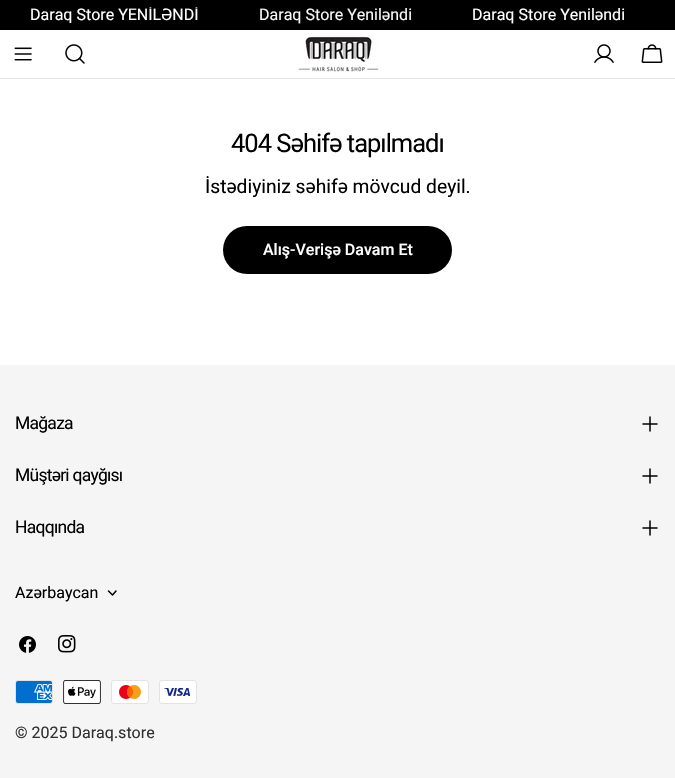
void draw(SkCanvas* canvas) {
	SkPaint paint;
	paint.setAntiAlias(true);
	auto spacedText = [&](const char* s, float x, float y, const SkFont& font, const SkPaint& ink, float letter, float word) {
		std::vector<SkGlyphID> glyphs(font.countText(s, strlen(s), SkTextEncoding::kUTF8));
		std::vector<float> xs(glyphs.size());
		font.textToGlyphs(s, strlen(s), SkTextEncoding::kUTF8, glyphs);
		font.getXPos(glyphs, xs, x);
		float extra = 0;
		for (size_t i = 0; i < glyphs.size(); i++) {
			xs[i] += extra;
			extra += letter + word * (glyphs[i] == font.unicharToGlyph(' '));
		}
		canvas->drawTextBlob(SkTextBlob::MakeFromPosHGlyphs(glyphs, xs, y, font), 0, 0, ink);
	};
	auto svgPath = [&](const char* data, bool evenOdd = false) {
		SkPath result = *SkParsePath::FromSVGString(data);
		if (evenOdd) result.setFillType(SkPathFillType::kEvenOdd);
		return result;
	};
	canvas->clear(0xffffffff);
	paint.setColor(0xff000000);
	canvas->drawRect(SkRect::MakeXYWH(0, 0, 675, 30), paint);
	canvas->save();
	canvas->clipRect(SkRect::MakeXYWH(0, 7, 675, 16));
	SkFont f1(fontMgr->matchFamilyStyle("Roboto", SkFontStyle::Normal()), 16);
	f1.setSubpixel(true);
	paint.setColor(0xffffffff);
	canvas->drawString("Daraq Store YENİLƏNDİ", 30, 20, f1, paint);
	canvas->restore();
	paint.setColor(0xfff7f7f7);
	canvas->drawString("Daraq Store Yeniləndi", 259, 20, f1, paint);
	paint.setColor(0xffffffff);
	canvas->drawString("Daraq Store Yeniləndi", 472, 20, f1, paint);
	paint.setColor(0xffe6e6e6);
	canvas->drawRect(SkRect::MakeXYWH(0, 78, 675, 1), paint);
	canvas->drawImageRect(SkImages::DeferredFromEncodedData(SkData::MakeFromFileName("img1.png")), SkRect::MakeXYWH(14, 47, 18, 14), SkSamplingOptions());
	canvas->drawImageRect(SkImages::DeferredFromEncodedData(SkData::MakeFromFileName("img2.png")), SkRect::MakeXYWH(65, 44, 20, 20), SkSamplingOptions());
	canvas->drawImageRect(SkImages::DeferredFromEncodedData(SkData::MakeFromFileName("img3.png")), SkRect::MakeXYWH(298, 35, 81, 38), SkSamplingOptions());
	canvas->drawImageRect(SkImages::DeferredFromEncodedData(SkData::MakeFromFileName("img4.png")), SkRect::MakeXYWH(594, 44, 20, 19), SkSamplingOptions());
	canvas->drawImageRect(SkImages::DeferredFromEncodedData(SkData::MakeFromFileName("img5.png")), SkRect::MakeXYWH(641, 44, 22, 19), SkSamplingOptions());
	SkFont f2(fontMgr->matchFamilyStyle("Roboto", SkFontStyle::Normal()), 25.5);
	f2.setSubpixel(true);
	paint.setColor(0xff000000);
	spacedText("404 Səhifə tapılmadı", 231, 152, f2, paint, -1, 0);
	SkFont f3(fontMgr->matchFamilyStyle("Roboto", SkFontStyle::Normal()), 19.25);
	f3.setSubpixel(true);
	canvas->drawString("İstədiyiniz səhifə mövcud deyil.", 205, 193, f3, paint);
	canvas->drawRoundRect(SkRect::MakeXYWH(223, 226, 229, 48), 24, 24, paint);
	SkFont f4(fontMgr->matchFamilyStyle("Roboto", SkFontStyle(500, SkFontStyle::kNormal_Width, SkFontStyle::kUpright_Slant)), 16);
	f4.setSubpixel(true);
	paint.setColor(0xffffffff);
	canvas->drawString("Alış-Verişə Davam Et", 263, 255, f4, paint);
	paint.setColor(0xfff5f5f5);
	canvas->drawRect(SkRect::MakeXYWH(0, 365, 675, 413), paint);
	SkFont f5(fontMgr->matchFamilyStyle("Roboto", SkFontStyle::Normal()), 17.5);
	f5.setSubpixel(true);
	paint.setColor(0xff000000);
	spacedText("Mağaza", 15, 429, f5, paint, -0.75, 0);
	paint.setStroke(true);
	paint.setStrokeWidth(1.5);
	paint.setStrokeCap(SkPaint::kRound_Cap);
	paint.setStrokeJoin(SkPaint::kRound_Join);
	canvas->drawPath(svgPath("M643 424H657M650 417V431"), paint);
	paint.setStroke(false);
	spacedText("Müştəri qayğısı", 15, 481, f5, paint, -0.75, 0);
	paint.setStroke(true);
	canvas->drawPath(svgPath("M643 476H657M650 469V483"), paint);
	paint.setStroke(false);
	spacedText("Haqqında", 15, 533, f5, paint, -0.75, 0);
	paint.setStroke(true);
	canvas->drawPath(svgPath("M643 528H657M650 521V535"), paint);
	paint.setStroke(false);
	canvas->drawString("Azərbaycan", 15, 598, f1, paint);
	paint.setStroke(true);
	canvas->drawPath(svgPath("M116 591L112.5 595L108.5 591"), paint);
	canvas->drawImageRect(SkImages::DeferredFromEncodedData(SkData::MakeFromFileName("img6.png")), SkRect::MakeXYWH(19, 636, 17, 17), SkSamplingOptions());
	canvas->drawImageRect(SkImages::DeferredFromEncodedData(SkData::MakeFromFileName("img7.png")), SkRect::MakeXYWH(58, 635, 18, 18), SkSamplingOptions());
	canvas->drawImageRect(SkImages::DeferredFromEncodedData(SkData::MakeFromFileName("img8.png")), SkRect::MakeXYWH(15, 680, 38, 24), SkSamplingOptions());
	canvas->drawImageRect(SkImages::DeferredFromEncodedData(SkData::MakeFromFileName("img9.png")), SkRect::MakeXYWH(63, 680, 38, 24), SkSamplingOptions());
	canvas->drawImageRect(SkImages::DeferredFromEncodedData(SkData::MakeFromFileName("img10.png")), SkRect::MakeXYWH(111, 680, 38, 24), SkSamplingOptions());
	canvas->drawImageRect(SkImages::DeferredFromEncodedData(SkData::MakeFromFileName("img11.png")), SkRect::MakeXYWH(159, 680, 38, 24), SkSamplingOptions());
	paint.setStroke(false);
	paint.setColor(0xff313131);
	canvas->drawString("© 2025 Daraq.store", 15, 738, f1, paint);
}
